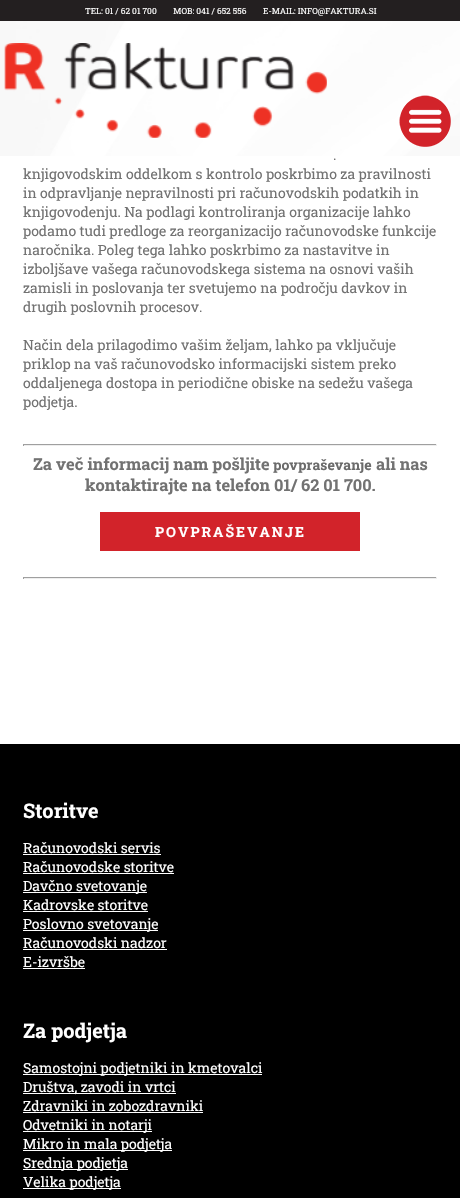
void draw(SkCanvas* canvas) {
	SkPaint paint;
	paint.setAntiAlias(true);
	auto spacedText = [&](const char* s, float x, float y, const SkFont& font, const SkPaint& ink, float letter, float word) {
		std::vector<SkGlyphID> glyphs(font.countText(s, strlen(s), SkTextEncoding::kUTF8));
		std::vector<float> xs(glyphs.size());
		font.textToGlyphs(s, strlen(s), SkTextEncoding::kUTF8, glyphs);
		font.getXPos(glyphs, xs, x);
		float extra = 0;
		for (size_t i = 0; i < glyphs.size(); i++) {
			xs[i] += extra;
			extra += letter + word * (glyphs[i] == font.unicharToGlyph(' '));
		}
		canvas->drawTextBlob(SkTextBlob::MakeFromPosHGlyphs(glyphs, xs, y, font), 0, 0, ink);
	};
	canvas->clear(0xffffffff);
	paint.setColor(0xff231f20);
	canvas->drawRect(SkRect::MakeXYWH(0, 0, 460, 21), paint);
	SkFont f1(fontMgr->matchFamilyStyle("Roboto Slab", SkFontStyle::Normal()), 8.4);
	f1.setSubpixel(true);
	paint.setColor(0xffffffff);
	canvas->drawString("TEL: 01 / 62 01 700        MOB: 041 / 652 556        E-MAIL: INFO@FAKTURA.SI", 85, 14, f1, paint);
	canvas->drawImageRect(SkImages::DeferredFromEncodedData(SkData::MakeFromFileName("img1.png")), SkRect::MakeXYWH(0, 21, 460, 136), SkSamplingOptions());
	canvas->drawImageRect(SkImages::DeferredFromEncodedData(SkData::MakeFromFileName("img2.png")), SkRect::MakeXYWH(4, 43, 323, 95), SkSamplingOptions());
	canvas->drawImageRect(SkImages::DeferredFromEncodedData(SkData::MakeFromFileName("img3.png")), SkRect::MakeXYWH(399, 95, 52, 52), SkSamplingOptions());
	SkFont f2(fontMgr->matchFamilyStyle("Roboto Slab", SkFontStyle::Normal()), 14);
	f2.setSubpixel(true);
	paint.setColor(0xff727272);
	canvas->drawString(".", 333, 160, f2, paint);
	canvas->drawString("knjigovodskim oddelkom s kontrolo poskrbimo za pravilnosti", 23, 179, f2, paint);
	canvas->drawString("in odpravljanje nepravilnosti pri računovodskih podatkih in", 23, 198, f2, paint);
	canvas->drawString("knjigovodenju. Na podlagi kontroliranja organizacije lahko", 23, 217, f2, paint);
	canvas->drawString("podamo tudi predloge za reorganizacijo računovodske funkcije", 23, 236, f2, paint);
	canvas->drawString("naročnika. Poleg tega lahko poskrbimo za nastavitve in", 23, 255, f2, paint);
	canvas->drawString("izboljšave vašega računovodskega sistema na osnovi vaših", 23, 274, f2, paint);
	canvas->drawString("zamisli in poslovanja ter svetujemo na področju davkov in", 23, 293, f2, paint);
	canvas->drawString("drugih poslovnih procesov.", 23, 312, f2, paint);
	canvas->drawString("Način dela prilagodimo vašim željam, lahko pa vključuje", 23, 350, f2, paint);
	canvas->drawString("priklop na vaš računovodsko informacijski sistem preko", 23, 369, f2, paint);
	canvas->drawString("oddaljenega dostopa in periodične obiske na sedežu vašega", 23, 388, f2, paint);
	canvas->drawString("podjetja.", 23, 407, f2, paint);
	paint.setColor(0xff9f9f9f);
	canvas->drawRect(SkRect::MakeXYWH(23, 444, 414, 1), paint);
	paint.setColor(0xffeeeeee);
	canvas->drawRect(SkRect::MakeXYWH(436, 444, 1, 2), paint);
	canvas->drawRect(SkRect::MakeXYWH(23, 445, 414, 1), paint);
	paint.setColor(0xff9f9f9f);
	canvas->drawRect(SkRect::MakeXYWH(23, 444, 1, 2), paint);
	SkFont f3(fontMgr->matchFamilyStyle("Roboto Slab", SkFontStyle::Bold()), 16.4);
	f3.setSubpixel(true);
	paint.setColor(0xff727272);
	canvas->drawString("Za več informacij nam pošljite", 33, 470, f3, paint);
	SkFont f4(fontMgr->matchFamilyStyle("Roboto Slab", SkFontStyle::Bold()), 14);
	f4.setSubpixel(true);
	paint.setColor(0xff6b6b6b);
	canvas->drawString("povpraševanje", 273, 470, f4, paint);
	paint.setColor(0xff727272);
	canvas->drawString("ali nas", 376, 470, f3, paint);
	canvas->drawString("kontaktirajte na telefon 01/ 62 01 700.", 85, 491, f3, paint);
	paint.setColor(0xffd2232a);
	canvas->drawRect(SkRect::MakeXYWH(100, 512, 260, 39), paint);
	paint.setColor(0xffffffff);
	spacedText("POVPRAŠEVANJE", 155, 537, f4, paint, 2, 0);
	paint.setColor(0xff9f9f9f);
	canvas->drawRect(SkRect::MakeXYWH(23, 577, 414, 1), paint);
	paint.setColor(0xffeeeeee);
	canvas->drawRect(SkRect::MakeXYWH(436, 577, 1, 2), paint);
	canvas->drawRect(SkRect::MakeXYWH(23, 578, 414, 1), paint);
	paint.setColor(0xff9f9f9f);
	canvas->drawRect(SkRect::MakeXYWH(23, 577, 1, 2), paint);
	paint.setColor(0xff000000);
	canvas->drawRect(SkRect::MakeXYWH(0, 744, 460, 454), paint);
	SkFont f5(fontMgr->matchFamilyStyle("Roboto Slab", SkFontStyle::Bold()), 20);
	f5.setSubpixel(true);
	paint.setColor(0xffffffff);
	canvas->drawString("Storitve", 23, 818, f5, paint);
	canvas->drawString("Računovodski servis", 23, 853, f2, paint);
	canvas->drawRect(SkRect::MakeXYWH(23, 854, 138, 1), paint);
	canvas->drawString("Računovodske storitve", 23, 872, f2, paint);
	canvas->drawRect(SkRect::MakeXYWH(23, 873, 151, 1), paint);
	canvas->drawRect(SkRect::MakeXYWH(23, 892, 124, 1), paint);
	canvas->drawString("Davčno svetovanje", 23, 891, f2, paint);
	canvas->drawString("Kadrovske storitve", 23, 910, f2, paint);
	canvas->drawRect(SkRect::MakeXYWH(23, 911, 125, 1), paint);
	canvas->drawRect(SkRect::MakeXYWH(23, 930, 135, 1), paint);
	canvas->drawString("Poslovno svetovanje", 23, 929, f2, paint);
	canvas->drawString("Računovodski nadzor", 23, 948, f2, paint);
	canvas->drawRect(SkRect::MakeXYWH(23, 949, 144, 1), paint);
	canvas->drawString("E-izvršbe", 23, 967, f2, paint);
	canvas->drawRect(SkRect::MakeXYWH(23, 968, 62, 1), paint);
	canvas->drawString("Za podjetja", 23, 1038, f5, paint);
	canvas->drawRect(SkRect::MakeXYWH(23, 1074, 239, 1), paint);
	canvas->drawString("Samostojni podjetniki in kmetovalci", 23, 1073, f2, paint);
	canvas->drawRect(SkRect::MakeXYWH(23, 1093, 153, 1), paint);
	canvas->drawString("Društva, zavodi in vrtci", 23, 1092, f2, paint);
	canvas->drawString("Zdravniki in zobozdravniki", 23, 1111, f2, paint);
	canvas->drawRect(SkRect::MakeXYWH(23, 1112, 180, 1), paint);
	canvas->drawRect(SkRect::MakeXYWH(23, 1131, 129, 1), paint);
	canvas->drawString("Odvetniki in notarji", 23, 1130, f2, paint);
	canvas->drawRect(SkRect::MakeXYWH(23, 1150, 149, 1), paint);
	canvas->drawString("Mikro in mala podjetja", 23, 1149, f2, paint);
	canvas->drawRect(SkRect::MakeXYWH(23, 1169, 105, 1), paint);
	canvas->drawString("Srednja podjetja", 23, 1168, f2, paint);
	canvas->drawRect(SkRect::MakeXYWH(23, 1188, 98, 1), paint);
	canvas->drawString("Velika podjetja", 23, 1187, f2, paint);
}
